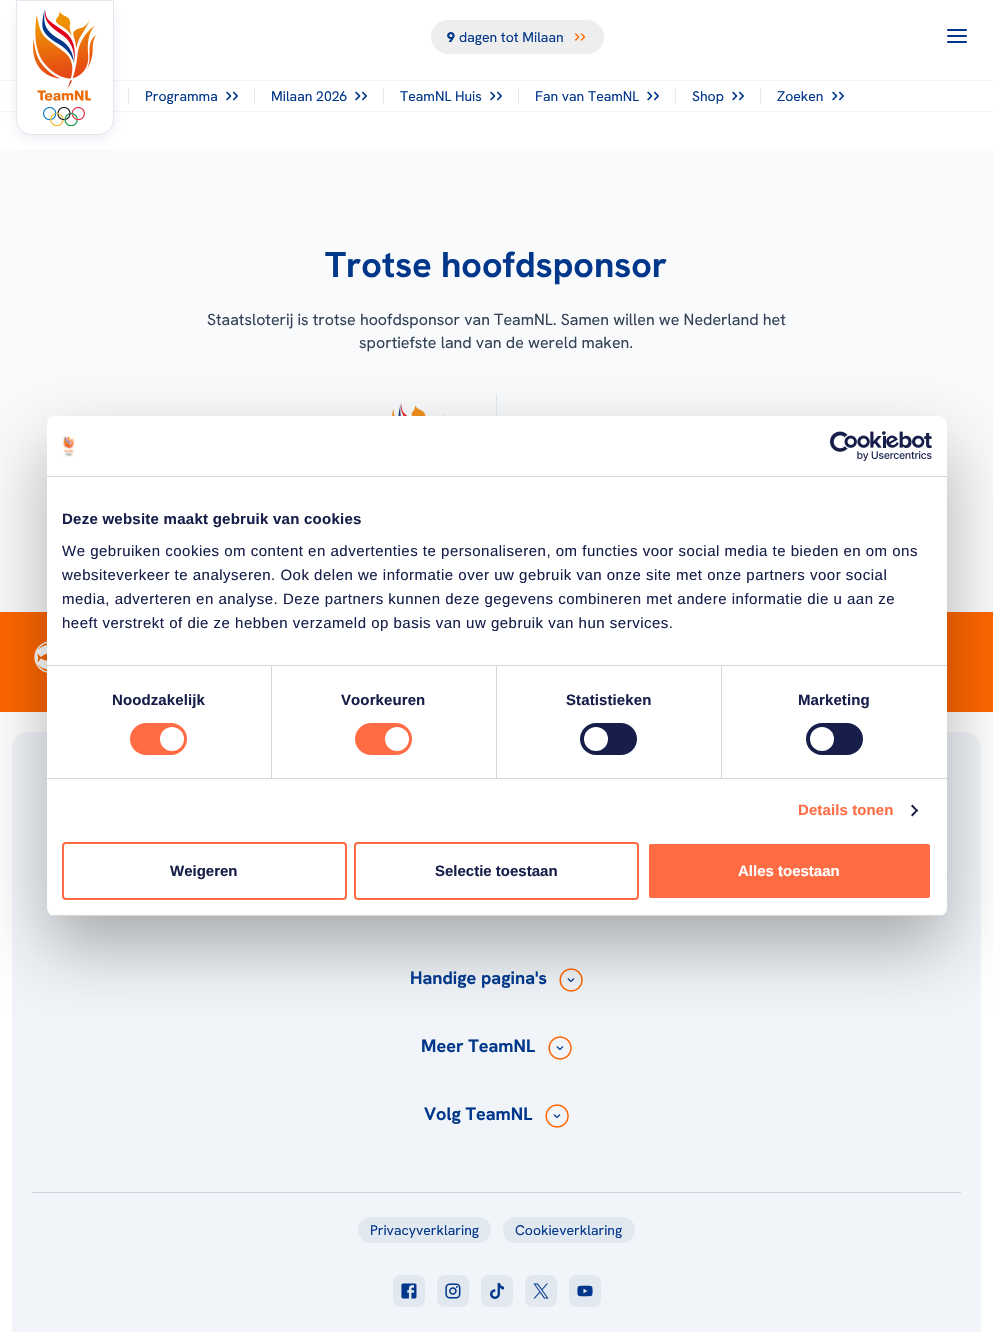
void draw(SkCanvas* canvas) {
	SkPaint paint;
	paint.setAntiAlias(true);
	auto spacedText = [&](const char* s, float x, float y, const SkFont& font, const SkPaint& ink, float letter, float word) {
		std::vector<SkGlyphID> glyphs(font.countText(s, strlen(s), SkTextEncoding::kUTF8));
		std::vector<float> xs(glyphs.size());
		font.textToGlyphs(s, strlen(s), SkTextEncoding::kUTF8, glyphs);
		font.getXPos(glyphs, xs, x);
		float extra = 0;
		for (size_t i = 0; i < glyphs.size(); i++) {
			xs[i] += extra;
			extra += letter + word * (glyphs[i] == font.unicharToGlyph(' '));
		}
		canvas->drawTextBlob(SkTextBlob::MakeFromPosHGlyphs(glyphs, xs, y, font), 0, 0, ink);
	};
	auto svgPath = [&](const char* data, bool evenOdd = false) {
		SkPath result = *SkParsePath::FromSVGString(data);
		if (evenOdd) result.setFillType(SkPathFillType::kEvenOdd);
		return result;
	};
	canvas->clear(0xffffffff);
	paint.setColor(0xfff1f5f9);
	canvas->drawRect(SkRect::MakeXYWH(0, 80, 993, 1), paint);
	canvas->drawRect(SkRect::MakeXYWH(0, 111, 993, 1), paint);
	paint.setColor(0xffe5e7eb);
	canvas->drawRect(SkRect::MakeXYWH(128, 89, 1, 14), paint);
	paint.setColor(0xfff8fafc);
	canvas->drawRect(SkRect::MakeXYWH(0, 149, 993, 463), paint);
	paint.setColor(0x14102074);
	paint.setMaskFilter(SkMaskFilter::MakeBlur(kNormal_SkBlurStyle, 6));
	canvas->drawRoundRect(SkRect::MakeXYWH(16, 4, 98, 135), 16, 16, paint);
	paint.setMaskFilter(nullptr);
	paint.setColor(0xffffffff);
	canvas->drawPath(svgPath("M16.5 .5H113.5V119C113.5 127.5 106.5 134.5 98 134.5H32C23.5 134.5 16.5 127.5 16.5 119Z"), paint);
	paint.setStroke(true);
	paint.setStrokeWidth(1);
	paint.setColor(0xffe2e8f0);
	canvas->drawPath(svgPath("M16.5 .5H113.5V119C113.5 127.5 106.5 134.5 98 134.5H32C23.5 134.5 16.5 127.5 16.5 119Z"), paint);
	canvas->drawImageRect(SkImages::DeferredFromEncodedData(SkData::MakeFromFileName("img1.png")), SkRect::MakeXYWH(33, 9, 64, 117), SkSamplingOptions());
	paint.setStroke(false);
	paint.setColor(0xffeeeeee);
	canvas->drawRoundRect(SkRect::MakeXYWH(431, 20, 173, 34), 17, 17, paint);
	SkFont f1(fontMgr->matchFamilyStyle("Hanken Grotesk", SkFontStyle(900, SkFontStyle::kNormal_Width, SkFontStyle::kUpright_Slant)), 14);
	f1.setSubpixel(true);
	paint.setColor(0xff00378a);
	canvas->drawString("9", 447, 42, f1, paint);
	SkFont f2(fontMgr->matchFamilyStyle("Hanken Grotesk", SkFontStyle::Normal()), 14);
	f2.setSubpixel(true);
	canvas->drawString("dagen tot Milaan", 459, 42, f2, paint);
	canvas->drawImageRect(SkImages::DeferredFromEncodedData(SkData::MakeFromFileName("img2.png")), SkRect::MakeXYWH(574, 33, 12, 8), SkSamplingOptions());
	canvas->drawImageRect(SkImages::DeferredFromEncodedData(SkData::MakeFromFileName("img3.png")), SkRect::MakeXYWH(947, 29, 20, 14), SkSamplingOptions());
	canvas->drawString("Programma", 145, 101, f2, paint);
	canvas->drawImageRect(SkImages::DeferredFromEncodedData(SkData::MakeFromFileName("img4.png")), SkRect::MakeXYWH(226, 91, 12, 10), SkSamplingOptions());
	paint.setColor(0xffe5e7eb);
	canvas->drawRect(SkRect::MakeXYWH(254, 89, 1, 14), paint);
	paint.setColor(0xff00378a);
	canvas->drawString("Milaan 2026", 271, 101, f2, paint);
	canvas->drawImageRect(SkImages::DeferredFromEncodedData(SkData::MakeFromFileName("img4.png")), SkRect::MakeXYWH(355, 91, 12, 10), SkSamplingOptions());
	paint.setColor(0xffe5e7eb);
	canvas->drawRect(SkRect::MakeXYWH(383, 89, 1, 14), paint);
	paint.setColor(0xff00378a);
	canvas->drawString("TeamNL Huis", 400, 101, f2, paint);
	canvas->drawImageRect(SkImages::DeferredFromEncodedData(SkData::MakeFromFileName("img4.png")), SkRect::MakeXYWH(490, 91, 12, 10), SkSamplingOptions());
	paint.setColor(0xffe5e7eb);
	canvas->drawRect(SkRect::MakeXYWH(518, 89, 1, 14), paint);
	paint.setColor(0xff00378a);
	canvas->drawString("Fan van TeamNL", 535, 101, f2, paint);
	canvas->drawImageRect(SkImages::DeferredFromEncodedData(SkData::MakeFromFileName("img4.png")), SkRect::MakeXYWH(647, 91, 12, 10), SkSamplingOptions());
	paint.setColor(0xffe5e7eb);
	canvas->drawRect(SkRect::MakeXYWH(675, 89, 1, 14), paint);
	paint.setColor(0xff00378a);
	canvas->drawString("Shop", 692, 101, f2, paint);
	canvas->drawImageRect(SkImages::DeferredFromEncodedData(SkData::MakeFromFileName("img4.png")), SkRect::MakeXYWH(732, 91, 12, 10), SkSamplingOptions());
	paint.setColor(0xffe5e7eb);
	canvas->drawRect(SkRect::MakeXYWH(760, 89, 1, 14), paint);
	paint.setColor(0xff00378a);
	canvas->drawString("Zoeken", 777, 101, f2, paint);
	canvas->drawImageRect(SkImages::DeferredFromEncodedData(SkData::MakeFromFileName("img4.png")), SkRect::MakeXYWH(832, 91, 12, 10), SkSamplingOptions());
	SkFont f3(fontMgr->matchFamilyStyle("Hanken Grotesk", SkFontStyle::Bold()), 36);
	f3.setSubpixel(true);
	canvas->drawString("Trotse hoofdsponsor", 325, 277, f3, paint);
	SkFont f4(fontMgr->matchFamilyStyle("Hanken Grotesk", SkFontStyle::Normal()), 16);
	f4.setSubpixel(true);
	paint.setColor(0xff334155);
	canvas->drawString("Staatsloterij is trotse hoofdsponsor van TeamNL. Samen willen we Nederland het", 207, 325, f4, paint);
	canvas->drawString("sportiefste land van de wereld maken.", 359, 348, f4, paint);
	paint.setColor(0xffe2e8f0);
	canvas->drawRect(SkRect::MakeXYWH(496, 394, 1, 22), paint);
	canvas->drawImageRect(SkImages::DeferredFromEncodedData(SkData::MakeFromFileName("img5.png")), SkRect::MakeXYWH(392, 403, 53, 13), SkSamplingOptions());
	paint.setColor(0xffff6600);
	canvas->drawRect(SkRect::MakeXYWH(0, 612, 993, 100), paint);
	canvas->drawImageRect(SkImages::DeferredFromEncodedData(SkData::MakeFromFileName("img8.png")), SkRect::MakeXYWH(34, 641, 13, 32), SkSamplingOptions());
	paint.setColor(0xfff1f5f9);
	canvas->drawPath(svgPath("M28 732H965C974 732 981 739 981 748V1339H12V748C12 739 19 732 28 732Z"), paint);
	canvas->drawImageRect(SkImages::DeferredFromEncodedData(SkData::MakeFromFileName("img9.png")), SkRect::MakeXYWH(559, 968, 24, 24), SkSamplingOptions());
	canvas->drawImageRect(SkImages::DeferredFromEncodedData(SkData::MakeFromFileName("img9.png")), SkRect::MakeXYWH(548, 1036, 24, 24), SkSamplingOptions());
	paint.setColor(0x4d000000);
	paint.setMaskFilter(SkMaskFilter::MakeBlur(kNormal_SkBlurStyle, 34));
	canvas->drawRoundRect(SkRect::MakeXYWH(47, 448, 900, 500), 8, 8, paint);
	paint.setMaskFilter(nullptr);
	paint.setColor(0xffffffff);
	canvas->drawRoundRect(SkRect::MakeXYWH(47, 416, 900, 500), 8, 8, paint);
	paint.setColor(0xffd6d6d6);
	canvas->drawRect(SkRect::MakeXYWH(47, 476, 900, 1), paint);
	canvas->drawImageRect(SkImages::DeferredFromEncodedData(SkData::MakeFromFileName("img6.png")), SkRect::MakeXYWH(62, 436, 13, 21), SkSamplingOptions());
	canvas->drawImageRect(SkImages::DeferredFromEncodedData(SkData::MakeFromFileName("img7.png")), SkRect::MakeXYWH(830, 431, 102, 30), SkSamplingOptions());
	canvas->drawRect(SkRect::MakeXYWH(47, 665, 900, 1), paint);
	SkFont f5(fontMgr->matchFamilyStyle("Liberation Sans", SkFontStyle::Bold()), 15);
	f5.setSubpixel(true);
	paint.setColor(0xff171e4a);
	spacedText("Deze website maakt gebruik van cookies", 62, 524, f5, paint, 0.25, 0);
	SkFont f6(fontMgr->matchFamilyStyle("Liberation Sans", SkFontStyle::Normal()), 15);
	f6.setSubpixel(true);
	spacedText("We gebruiken cookies om content en advertenties te personaliseren, om functies voor social media te bieden en om ons", 62, 556, f6, paint, 0.5, 0);
	spacedText("websiteverkeer te analyseren. Ook delen we informatie over uw gebruik van onze site met onze partners voor social", 62, 580, f6, paint, 0.5, 0);
	spacedText("media, adverteren en analyse. Deze partners kunnen deze gegevens combineren met andere informatie die u aan ze", 62, 604, f6, paint, 0.5, 0);
	spacedText("heeft verstrekt of die ze hebben verzameld op basis van uw gebruik van hun services.", 62, 628, f6, paint, 0.5, 0);
	paint.setColor(0xffd6d6d6);
	canvas->drawRect(SkRect::MakeXYWH(47, 778, 900, 1), paint);
	canvas->drawRect(SkRect::MakeXYWH(271, 666, 1, 112), paint);
	paint.setColor(0xff171e4a);
	spacedText("Noodzakelijk", 112, 705, f5, paint, 0.1, 0);
	paint.setColor(0xffff6c43);
	canvas->drawRoundRect(SkRect::MakeXYWH(130, 723, 57, 32), 16, 16, paint);
	paint.setColor(0xffffffff);
	canvas->drawCircle(172, 739, 12, paint);
	paint.setColor(0xffd6d6d6);
	canvas->drawRect(SkRect::MakeXYWH(496, 666, 1, 112), paint);
	paint.setColor(0xff171e4a);
	spacedText("Voorkeuren", 341, 705, f5, paint, 0.1, 0);
	paint.setColor(0xffff6c43);
	canvas->drawRoundRect(SkRect::MakeXYWH(355, 723, 57, 32), 16, 16, paint);
	paint.setColor(0xffffffff);
	canvas->drawCircle(397, 739, 12, paint);
	paint.setColor(0xffd6d6d6);
	canvas->drawRect(SkRect::MakeXYWH(721, 666, 1, 112), paint);
	paint.setColor(0xff171e4a);
	spacedText("Statistieken", 566, 705, f5, paint, 0.1, 0);
	canvas->drawRoundRect(SkRect::MakeXYWH(580, 723, 57, 32), 16, 16, paint);
	paint.setColor(0xffffffff);
	canvas->drawCircle(596, 739, 12, paint);
	paint.setColor(0xff171e4a);
	spacedText("Marketing", 798, 705, f5, paint, 0.1, 0);
	canvas->drawRoundRect(SkRect::MakeXYWH(806, 723, 57, 32), 16, 16, paint);
	paint.setColor(0xffffffff);
	canvas->drawCircle(822, 739, 12, paint);
	paint.setColor(0xffff6c43);
	spacedText("Details tonen", 798, 815, f5, paint, 0.1, 0);
	paint.setColor(0xff171e4a);
	canvas->drawPath(svgPath("M912.5 804.5L918 810.5L917 812L911 806Z"), paint);
	canvas->drawPath(svgPath("M917 809L918 810.5L912.5 816.5L911 815Z"), paint);
	canvas->save();
	canvas->clipPath(svgPath("M55 416H939C943.5 416 947 419.5 947 424V908C947 912.5 943.5 916 939 916H55C50.5 916 47 912.5 47 908V424C47 419.5 50.5 416 55 416Z"), true);
	paint.setColor(0xffd6d6d6);
	canvas->drawRect(SkRect::MakeXYWH(47, 915, 900, 1), paint);
	canvas->restore();
	paint.setStroke(true);
	paint.setStrokeWidth(2);
	paint.setColor(0xffff6c43);
	canvas->drawRoundRect(SkRect::MakeXYWH(63, 843, 283, 56), 3, 3, paint);
	paint.setStroke(false);
	paint.setColor(0xff171e4a);
	canvas->drawString("Weigeren", 170, 876, f5, paint);
	paint.setStroke(true);
	paint.setColor(0xffff6c43);
	canvas->drawRoundRect(SkRect::MakeXYWH(355, 843, 283, 56), 3, 3, paint);
	paint.setStroke(false);
	paint.setColor(0xff171e4a);
	canvas->drawString("Selectie toestaan", 435, 876, f5, paint);
	paint.setColor(0xffff6c43);
	canvas->drawRoundRect(SkRect::MakeXYWH(648, 843, 283, 56), 3, 3, paint);
	paint.setStroke(true);
	paint.setColor(0xffffffff);
	canvas->drawRoundRect(SkRect::MakeXYWH(648, 843, 283, 56), 3, 3, paint);
	paint.setStroke(false);
	canvas->drawString("Alles toestaan", 738, 876, f5, paint);
	paint.setColor(0xffcbd5e1);
	canvas->drawRect(SkRect::MakeXYWH(32, 1192, 929, 1), paint);
	SkFont f7(fontMgr->matchFamilyStyle("Hanken Grotesk", SkFontStyle::Bold()), 18);
	f7.setSubpixel(true);
	paint.setColor(0xff00378a);
	canvas->drawString("Handige pagina's", 410, 984, f7, paint);
	canvas->drawString("Meer TeamNL", 421, 1052, f7, paint);
	canvas->drawString("Volg TeamNL", 424, 1120, f7, paint);
	canvas->drawImageRect(SkImages::DeferredFromEncodedData(SkData::MakeFromFileName("img9.png")), SkRect::MakeXYWH(545, 1104, 24, 24), SkSamplingOptions());
	paint.setColor(0xffe2e8f0);
	canvas->drawRoundRect(SkRect::MakeXYWH(358, 1217, 133, 26), 13, 13, paint);
	paint.setColor(0xff00378a);
	canvas->drawString("Privacyverklaring", 370, 1235, f2, paint);
	paint.setColor(0xffe2e8f0);
	canvas->drawRoundRect(SkRect::MakeXYWH(503, 1217, 132, 26), 13, 13, paint);
	paint.setColor(0xff00378a);
	canvas->drawString("Cookieverklaring", 515, 1235, f2, paint);
	paint.setColor(0xffe2e8f0);
	canvas->drawRoundRect(SkRect::MakeXYWH(393, 1275, 32, 32), 8, 8, paint);
	canvas->drawImageRect(SkImages::DeferredFromEncodedData(SkData::MakeFromFileName("img10.png")), SkRect::MakeXYWH(401, 1283, 16, 16), SkSamplingOptions());
	canvas->drawRoundRect(SkRect::MakeXYWH(437, 1275, 32, 32), 8, 8, paint);
	canvas->drawImageRect(SkImages::DeferredFromEncodedData(SkData::MakeFromFileName("img11.png")), SkRect::MakeXYWH(445, 1283, 16, 16), SkSamplingOptions());
	canvas->drawRoundRect(SkRect::MakeXYWH(481, 1275, 32, 32), 8, 8, paint);
	canvas->drawImageRect(SkImages::DeferredFromEncodedData(SkData::MakeFromFileName("img12.png")), SkRect::MakeXYWH(490, 1283, 14, 16), SkSamplingOptions());
	canvas->drawRoundRect(SkRect::MakeXYWH(525, 1275, 32, 32), 8, 8, paint);
	canvas->drawImageRect(SkImages::DeferredFromEncodedData(SkData::MakeFromFileName("img13.png")), SkRect::MakeXYWH(533, 1283, 16, 16), SkSamplingOptions());
	canvas->drawRoundRect(SkRect::MakeXYWH(569, 1275, 32, 32), 8, 8, paint);
	canvas->drawImageRect(SkImages::DeferredFromEncodedData(SkData::MakeFromFileName("img14.png")), SkRect::MakeXYWH(577, 1285, 16, 12), SkSamplingOptions());
}
